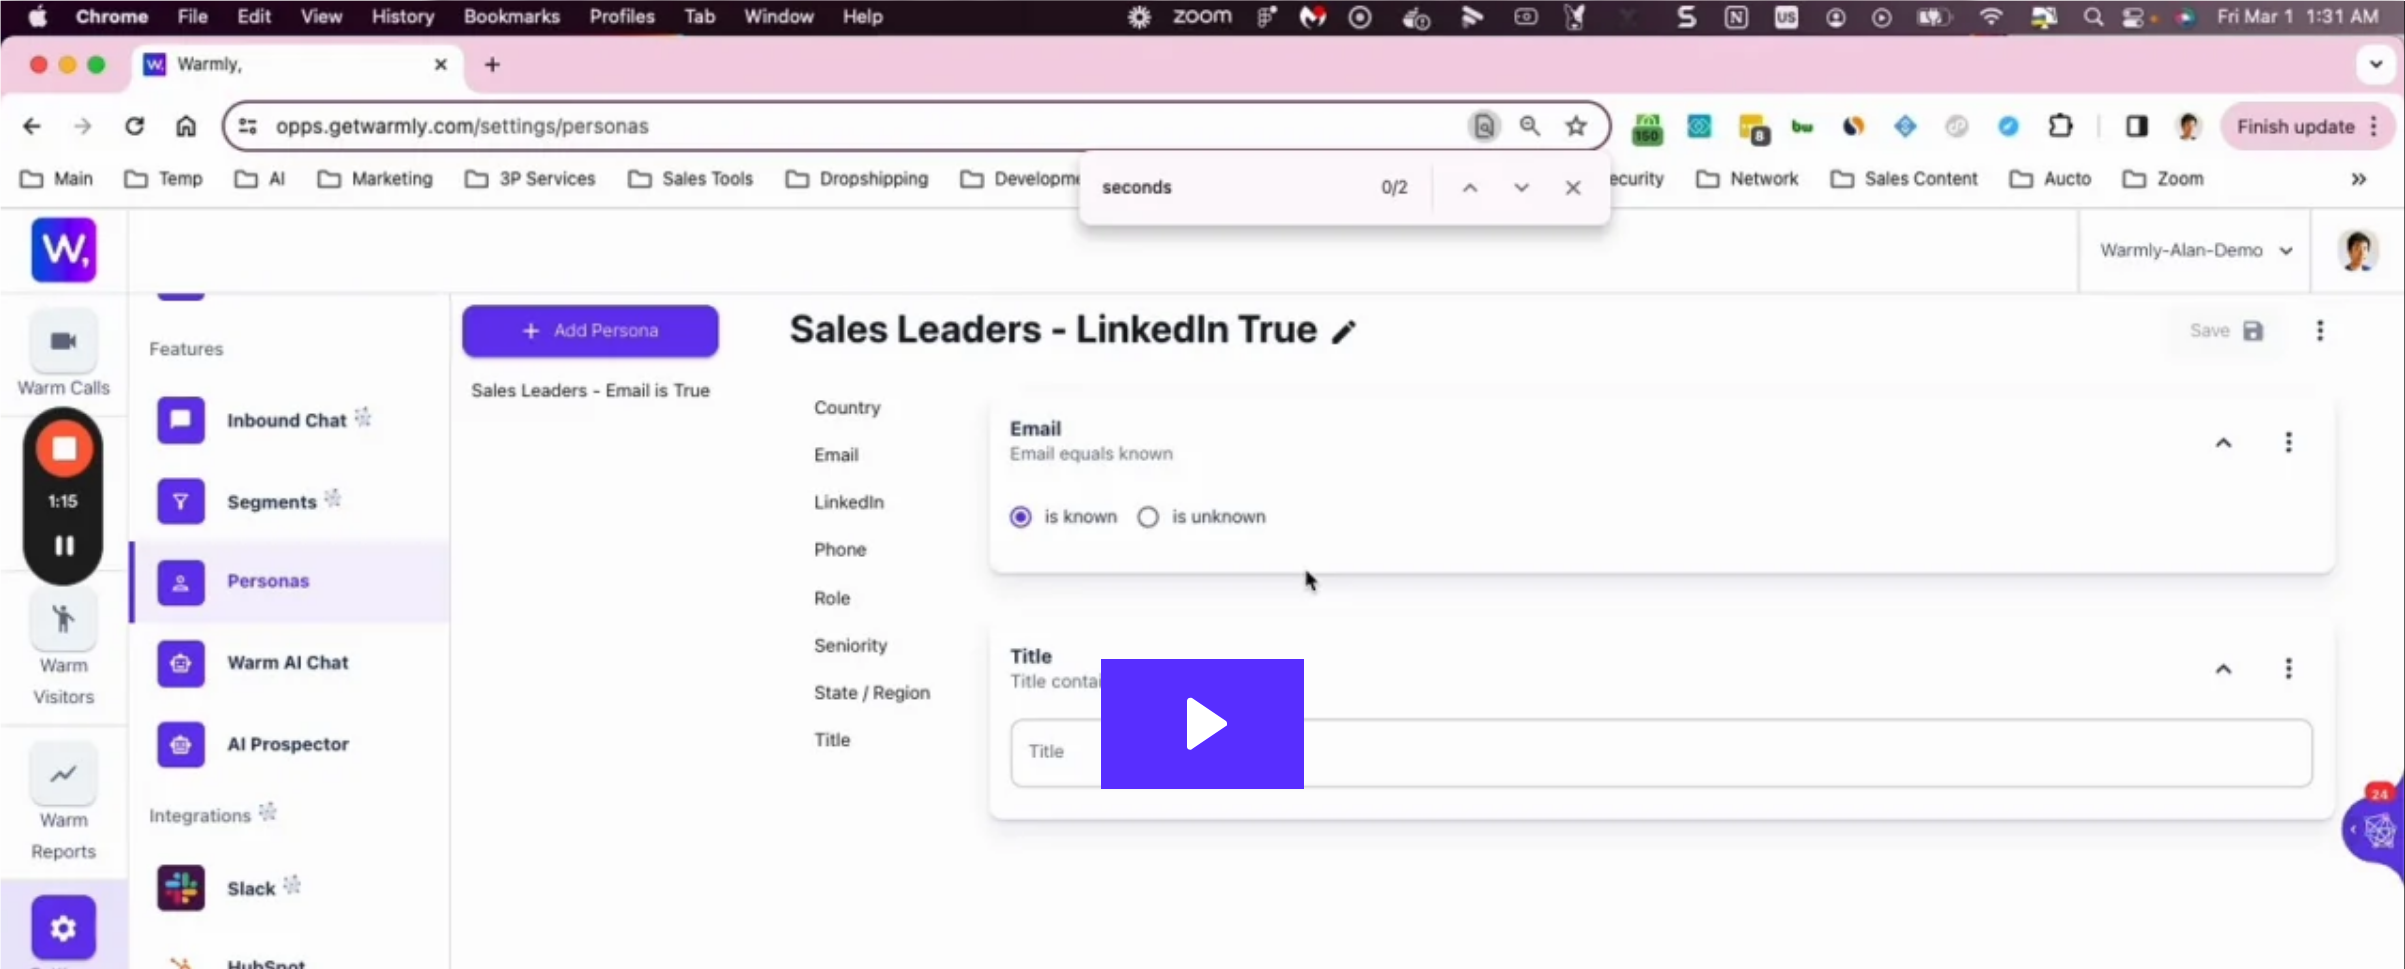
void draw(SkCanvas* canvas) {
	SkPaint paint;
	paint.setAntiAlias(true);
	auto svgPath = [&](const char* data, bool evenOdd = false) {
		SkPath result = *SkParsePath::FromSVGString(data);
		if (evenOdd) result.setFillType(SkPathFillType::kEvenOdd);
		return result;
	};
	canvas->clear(0xffffffff);
	canvas->drawImageRect(SkImages::DeferredFromEncodedData(SkData::MakeFromFileName("img3.png")), SkRect::MakeXYWH(422, 0, 1561, 1), SkSamplingOptions());
	canvas->drawImageRect(SkImages::DeferredFromEncodedData(SkData::MakeFromFileName("img1.png")), SkRect::MakeXYWH(0, 0, 2401, 969), SkSamplingOptions());
	paint.setColor(0xff000000);
	canvas->drawRect(SkRect::MakeXYWH(2404, 1, 1, 968), paint);
	canvas->drawImageRect(SkImages::DeferredFromEncodedData(SkData::MakeFromFileName("img2.png")), SkRect::MakeXYWH(0, 0, 2405, 969), SkSamplingOptions());
	paint.setColor(0xff582eff);
	canvas->drawRect(SkRect::MakeXYWH(1101, 659, 203, 130), paint);
	paint.setColor(0xffffffff);
	canvas->drawPath(svgPath("M1192 698C1190 697 1187 698 1187 701V747C1187 749 1190 751 1192 749L1226 726C1227 726 1227 725 1227 724C1227 723 1227 722 1226 721Z", true), paint);
}
